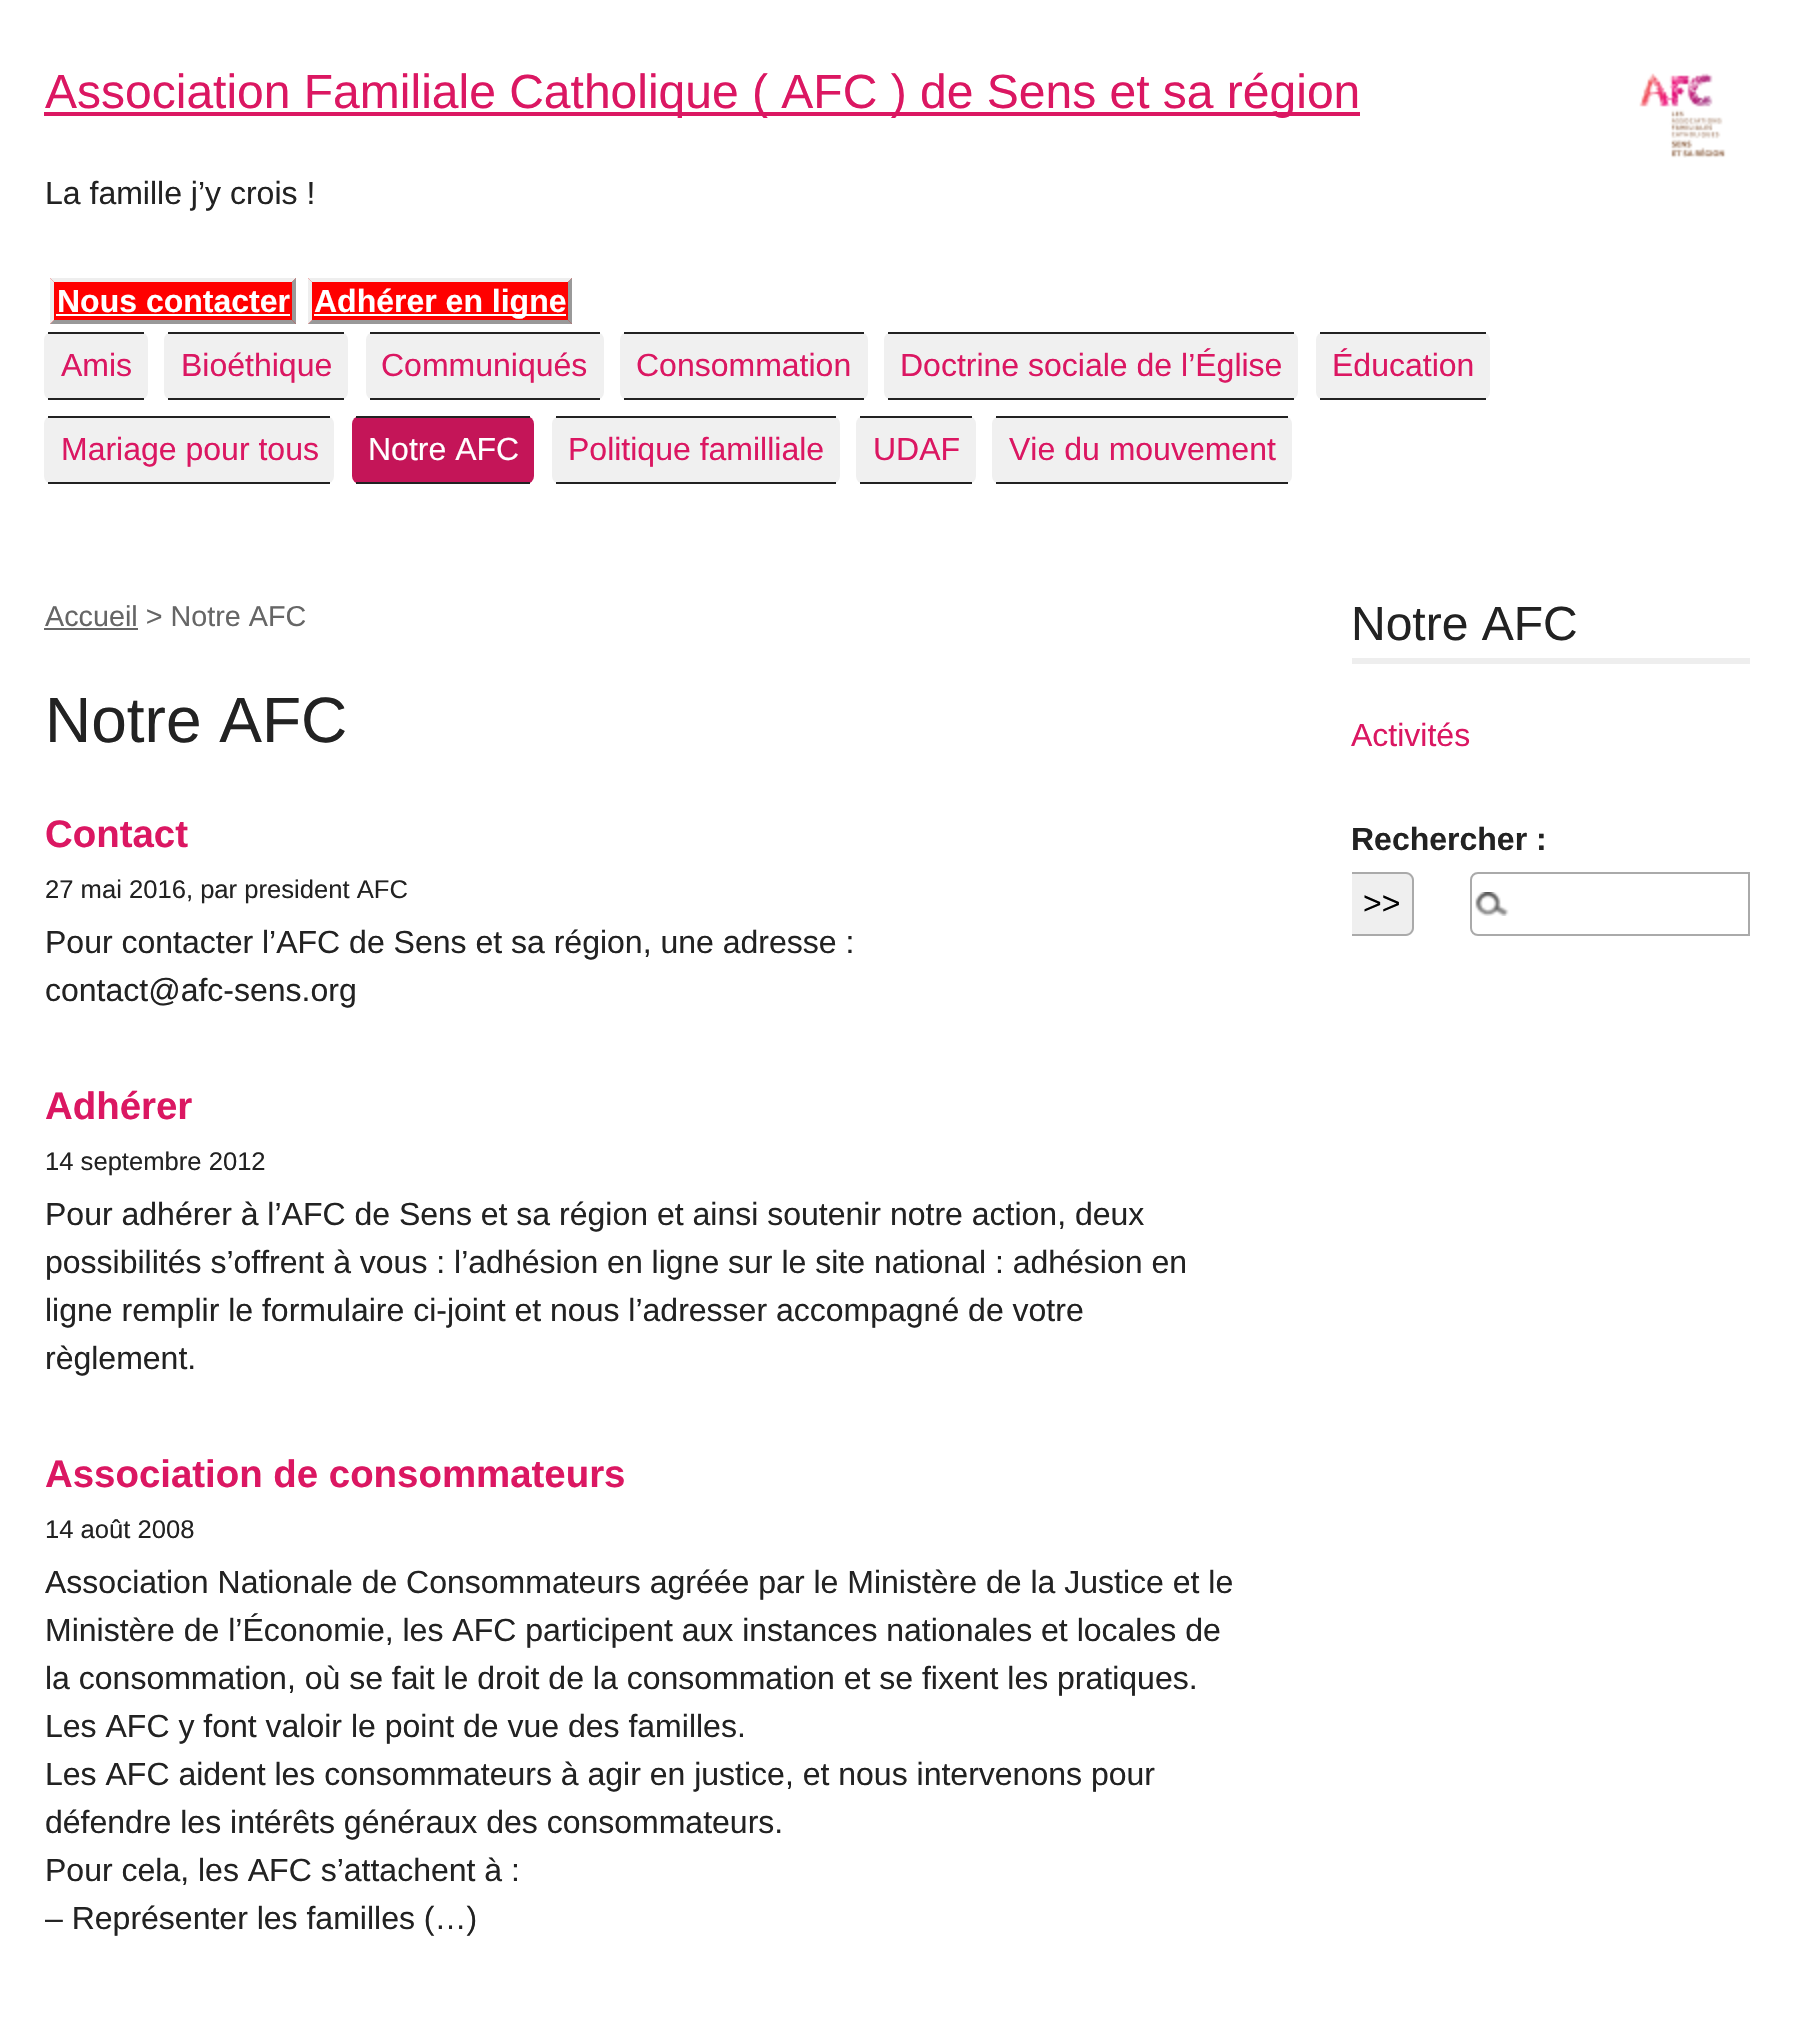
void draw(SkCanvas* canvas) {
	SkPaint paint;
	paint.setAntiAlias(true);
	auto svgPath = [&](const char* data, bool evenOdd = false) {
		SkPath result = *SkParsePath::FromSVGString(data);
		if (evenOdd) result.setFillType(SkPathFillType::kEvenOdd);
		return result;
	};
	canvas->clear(0xffffffff);
	paint.setColor(0xffdb1762);
	canvas->drawRect(SkRect::MakeXYWH(44, 112, 1316, 4), paint);
	SkFont f1(fontMgr->matchFamilyStyle("Liberation Sans", SkFontStyle::Normal()), 48);
	f1.setSubpixel(true);
	canvas->drawString("Association Familiale Catholique ( AFC ) de Sens et sa région", 45, 108, f1, paint);
	canvas->drawImageRect(SkImages::DeferredFromEncodedData(SkData::MakeFromFileName("img1.png")), SkRect::MakeXYWH(1639, 73, 87, 85), SkSamplingOptions());
	SkFont f2(fontMgr->matchFamilyStyle("Liberation Sans", SkFontStyle::Normal()), 32);
	f2.setSubpixel(true);
	paint.setColor(0xff222222);
	canvas->drawString("La famille j’y crois !", 45, 204, f2, paint);
	paint.setColor(0xffff0000);
	canvas->drawRect(SkRect::MakeXYWH(50, 278, 246, 46), paint);
	SkFont f3(fontMgr->matchFamilyStyle("Liberation Sans", SkFontStyle::Bold()), 32);
	f3.setSubpixel(true);
	paint.setColor(0xffffffff);
	canvas->drawString("Nous contacter", 57, 312, f3, paint);
	paint.setColor(0xffeeeeee);
	canvas->drawPath(svgPath("M50 278H296L292 282H54Z"), paint);
	paint.setColor(0xff999999);
	canvas->drawPath(svgPath("M296 278V324L292 320V282Z"), paint);
	canvas->drawPath(svgPath("M296 324H50L54 320H292Z"), paint);
	paint.setColor(0xffeeeeee);
	canvas->drawPath(svgPath("M50 324V278L54 282V320Z"), paint);
	paint.setColor(0xffffffff);
	canvas->drawRect(SkRect::MakeXYWH(56, 314, 234, 2), paint);
	paint.setColor(0xffff0000);
	canvas->drawRect(SkRect::MakeXYWH(308, 278, 264, 46), paint);
	paint.setColor(0xffffffff);
	canvas->drawRect(SkRect::MakeXYWH(314, 314, 252, 2), paint);
	canvas->drawString("Adhérer en ligne", 314, 312, f3, paint);
	paint.setColor(0xffeeeeee);
	canvas->drawPath(svgPath("M308 278H572L568 282H312Z"), paint);
	paint.setColor(0xff999999);
	canvas->drawPath(svgPath("M572 278V324L568 320V282Z"), paint);
	canvas->drawPath(svgPath("M572 324H308L312 320H568Z"), paint);
	paint.setColor(0xffeeeeee);
	canvas->drawPath(svgPath("M308 324V278L312 282V320Z"), paint);
	paint.setColor(0xfff0f0f0);
	canvas->drawRoundRect(SkRect::MakeXYWH(44, 332, 104, 68), 8, 8, paint);
	paint.setColor(0xff222222);
	canvas->drawRect(SkRect::MakeXYWH(48, 332, 96, 2), paint);
	canvas->drawRect(SkRect::MakeXYWH(48, 398, 96, 2), paint);
	paint.setColor(0xffdb1762);
	canvas->drawString("Amis", 61, 376, f2, paint);
	paint.setColor(0xfff0f0f0);
	canvas->drawRoundRect(SkRect::MakeXYWH(164, 332, 184, 68), 8, 8, paint);
	paint.setColor(0xff222222);
	canvas->drawRect(SkRect::MakeXYWH(168, 332, 176, 2), paint);
	canvas->drawRect(SkRect::MakeXYWH(168, 398, 176, 2), paint);
	paint.setColor(0xffdb1762);
	canvas->drawString("Bioéthique", 181, 376, f2, paint);
	paint.setColor(0xfff0f0f0);
	canvas->drawRoundRect(SkRect::MakeXYWH(366, 332, 238, 68), 8, 8, paint);
	paint.setColor(0xff222222);
	canvas->drawRect(SkRect::MakeXYWH(370, 332, 230, 2), paint);
	canvas->drawRect(SkRect::MakeXYWH(370, 398, 230, 2), paint);
	paint.setColor(0xffdb1762);
	canvas->drawString("Communiqués", 381, 376, f2, paint);
	paint.setColor(0xfff0f0f0);
	canvas->drawRoundRect(SkRect::MakeXYWH(620, 332, 248, 68), 8, 8, paint);
	paint.setColor(0xff222222);
	canvas->drawRect(SkRect::MakeXYWH(624, 332, 240, 2), paint);
	canvas->drawRect(SkRect::MakeXYWH(624, 398, 240, 2), paint);
	paint.setColor(0xffdb1762);
	canvas->drawString("Consommation", 636, 376, f2, paint);
	paint.setColor(0xfff0f0f0);
	canvas->drawRoundRect(SkRect::MakeXYWH(884, 332, 414, 68), 8, 8, paint);
	paint.setColor(0xff222222);
	canvas->drawRect(SkRect::MakeXYWH(888, 332, 406, 2), paint);
	canvas->drawRect(SkRect::MakeXYWH(888, 398, 406, 2), paint);
	paint.setColor(0xffdb1762);
	canvas->drawString("Doctrine sociale de l’Église", 900, 376, f2, paint);
	paint.setColor(0xfff0f0f0);
	canvas->drawRoundRect(SkRect::MakeXYWH(1316, 332, 174, 68), 8, 8, paint);
	paint.setColor(0xff222222);
	canvas->drawRect(SkRect::MakeXYWH(1320, 332, 166, 2), paint);
	canvas->drawRect(SkRect::MakeXYWH(1320, 398, 166, 2), paint);
	paint.setColor(0xffdb1762);
	canvas->drawString("Éducation", 1332, 376, f2, paint);
	paint.setColor(0xfff0f0f0);
	canvas->drawRoundRect(SkRect::MakeXYWH(44, 416, 290, 68), 8, 8, paint);
	paint.setColor(0xff222222);
	canvas->drawRect(SkRect::MakeXYWH(48, 416, 282, 2), paint);
	canvas->drawRect(SkRect::MakeXYWH(48, 482, 282, 2), paint);
	paint.setColor(0xffdb1762);
	canvas->drawString("Mariage pour tous", 61, 460, f2, paint);
	paint.setColor(0xffc41558);
	canvas->drawRoundRect(SkRect::MakeXYWH(352, 416, 182, 68), 8, 8, paint);
	paint.setColor(0xff222222);
	canvas->drawRect(SkRect::MakeXYWH(356, 416, 174, 2), paint);
	canvas->drawRect(SkRect::MakeXYWH(356, 482, 174, 2), paint);
	paint.setColor(0xffffffff);
	canvas->drawString("Notre AFC", 368, 460, f2, paint);
	paint.setColor(0xfff0f0f0);
	canvas->drawRoundRect(SkRect::MakeXYWH(552, 416, 288, 68), 8, 8, paint);
	paint.setColor(0xff222222);
	canvas->drawRect(SkRect::MakeXYWH(556, 416, 280, 2), paint);
	canvas->drawRect(SkRect::MakeXYWH(556, 482, 280, 2), paint);
	paint.setColor(0xffdb1762);
	canvas->drawString("Politique familliale", 568, 460, f2, paint);
	paint.setColor(0xfff0f0f0);
	canvas->drawRoundRect(SkRect::MakeXYWH(856, 416, 120, 68), 8, 8, paint);
	paint.setColor(0xff222222);
	canvas->drawRect(SkRect::MakeXYWH(860, 416, 112, 2), paint);
	canvas->drawRect(SkRect::MakeXYWH(860, 482, 112, 2), paint);
	paint.setColor(0xffdb1762);
	canvas->drawString("UDAF", 873, 460, f2, paint);
	paint.setColor(0xfff0f0f0);
	canvas->drawRoundRect(SkRect::MakeXYWH(992, 416, 300, 68), 8, 8, paint);
	paint.setColor(0xff222222);
	canvas->drawRect(SkRect::MakeXYWH(996, 416, 292, 2), paint);
	canvas->drawRect(SkRect::MakeXYWH(996, 482, 292, 2), paint);
	paint.setColor(0xffdb1762);
	canvas->drawString("Vie du mouvement", 1009, 460, f2, paint);
	SkFont f4(fontMgr->matchFamilyStyle("Liberation Sans", SkFontStyle::Normal()), 28.75);
	f4.setSubpixel(true);
	paint.setColor(0xff666666);
	canvas->drawString("Accueil > Notre AFC", 45, 626, f4, paint);
	canvas->drawRect(SkRect::MakeXYWH(44, 628, 94, 2), paint);
	SkFont f5(fontMgr->matchFamilyStyle("Liberation Sans", SkFontStyle::Normal()), 64);
	f5.setSubpixel(true);
	paint.setColor(0xff222222);
	canvas->drawString("Notre AFC", 45, 742, f5, paint);
	SkFont f6(fontMgr->matchFamilyStyle("Liberation Sans", SkFontStyle::Bold()), 38.4);
	f6.setSubpixel(true);
	paint.setColor(0xffdb1762);
	canvas->drawString("Contact", 45, 847, f6, paint);
	SkFont f7(fontMgr->matchFamilyStyle("Liberation Sans", SkFontStyle::Normal()), 25.6);
	f7.setSubpixel(true);
	paint.setColor(0xff222222);
	canvas->drawString("27 mai 2016, par president AFC", 45, 898, f7, paint);
	canvas->drawString("Pour contacter l’AFC de Sens et sa région, une adresse :", 45, 953, f2, paint);
	canvas->drawString("contact@afc-sens.org", 45, 1001, f2, paint);
	paint.setColor(0xffdb1762);
	canvas->drawString("Adhérer", 45, 1119, f6, paint);
	paint.setColor(0xff222222);
	canvas->drawString("14 septembre 2012", 45, 1170, f7, paint);
	canvas->drawString("Pour adhérer à l’AFC de Sens et sa région et ainsi soutenir notre action, deux", 45, 1225, f2, paint);
	canvas->drawString("possibilités s’offrent à vous : l’adhésion en ligne sur le site national : adhésion en", 45, 1273, f2, paint);
	canvas->drawString("ligne remplir le formulaire ci-joint et nous l’adresser accompagné de votre", 45, 1321, f2, paint);
	canvas->drawString("règlement.", 45, 1369, f2, paint);
	paint.setColor(0xffdb1762);
	canvas->drawString("Association de consommateurs", 45, 1487, f6, paint);
	paint.setColor(0xff222222);
	canvas->drawString("14 août 2008", 45, 1538, f7, paint);
	canvas->drawString("Association Nationale de Consommateurs agréée par le Ministère de la Justice et le", 45, 1593, f2, paint);
	canvas->drawString("Ministère de l’Économie, les AFC participent aux instances nationales et locales de", 45, 1641, f2, paint);
	canvas->drawString("la consommation, où se fait le droit de la consommation et se fixent les pratiques.", 45, 1689, f2, paint);
	canvas->drawString("Les AFC y font valoir le point de vue des familles.", 45, 1737, f2, paint);
	canvas->drawString("Les AFC aident les consommateurs à agir en justice, et nous intervenons pour", 45, 1785, f2, paint);
	canvas->drawString("défendre les intérêts généraux des consommateurs.", 45, 1833, f2, paint);
	canvas->drawString("Pour cela, les AFC s’attachent à :", 45, 1881, f2, paint);
	canvas->drawString("– Représenter les familles (…)", 45, 1929, f2, paint);
	paint.setColor(0xffeeeeee);
	canvas->drawRect(SkRect::MakeXYWH(1352, 658, 398, 6), paint);
	paint.setColor(0xff222222);
	canvas->drawString("Notre AFC", 1351, 640, f1, paint);
	paint.setColor(0xffdb1762);
	canvas->drawString("Activités", 1351, 746, f2, paint);
	paint.setColor(0xff222222);
	canvas->drawString("Rechercher :", 1351, 850, f3, paint);
	paint.setColor(0xffefefef);
	canvas->drawPath(svgPath("M1352 872H1406C1410.5 872 1414 875.5 1414 880V928C1414 932.5 1410.5 936 1406 936H1352Z"), paint);
	paint.setColor(0xffaaaaaa);
	canvas->drawPath(svgPath("M1352 872H1406C1410 872 1414 876 1414 880V928C1414 932 1410 936 1406 936H1352ZM1352 874H1406C1409 874 1412 877 1412 880V928C1412 931 1409 934 1406 934H1352Z", true), paint);
	paint.setColor(0xff000000);
	canvas->drawString(">>", 1363, 914, f2, paint);
	canvas->drawImageRect(SkImages::DeferredFromEncodedData(SkData::MakeFromFileName("img2.png")), SkRect::MakeXYWH(1475, 892, 34, 24), SkSamplingOptions());
	paint.setStroke(true);
	paint.setStrokeWidth(2);
	paint.setColor(0xffaaaaaa);
	canvas->drawPath(svgPath("M1478 873H1749V935H1478C1474 935 1471 932 1471 928V880C1471 876 1474 873 1478 873Z"), paint);
}
